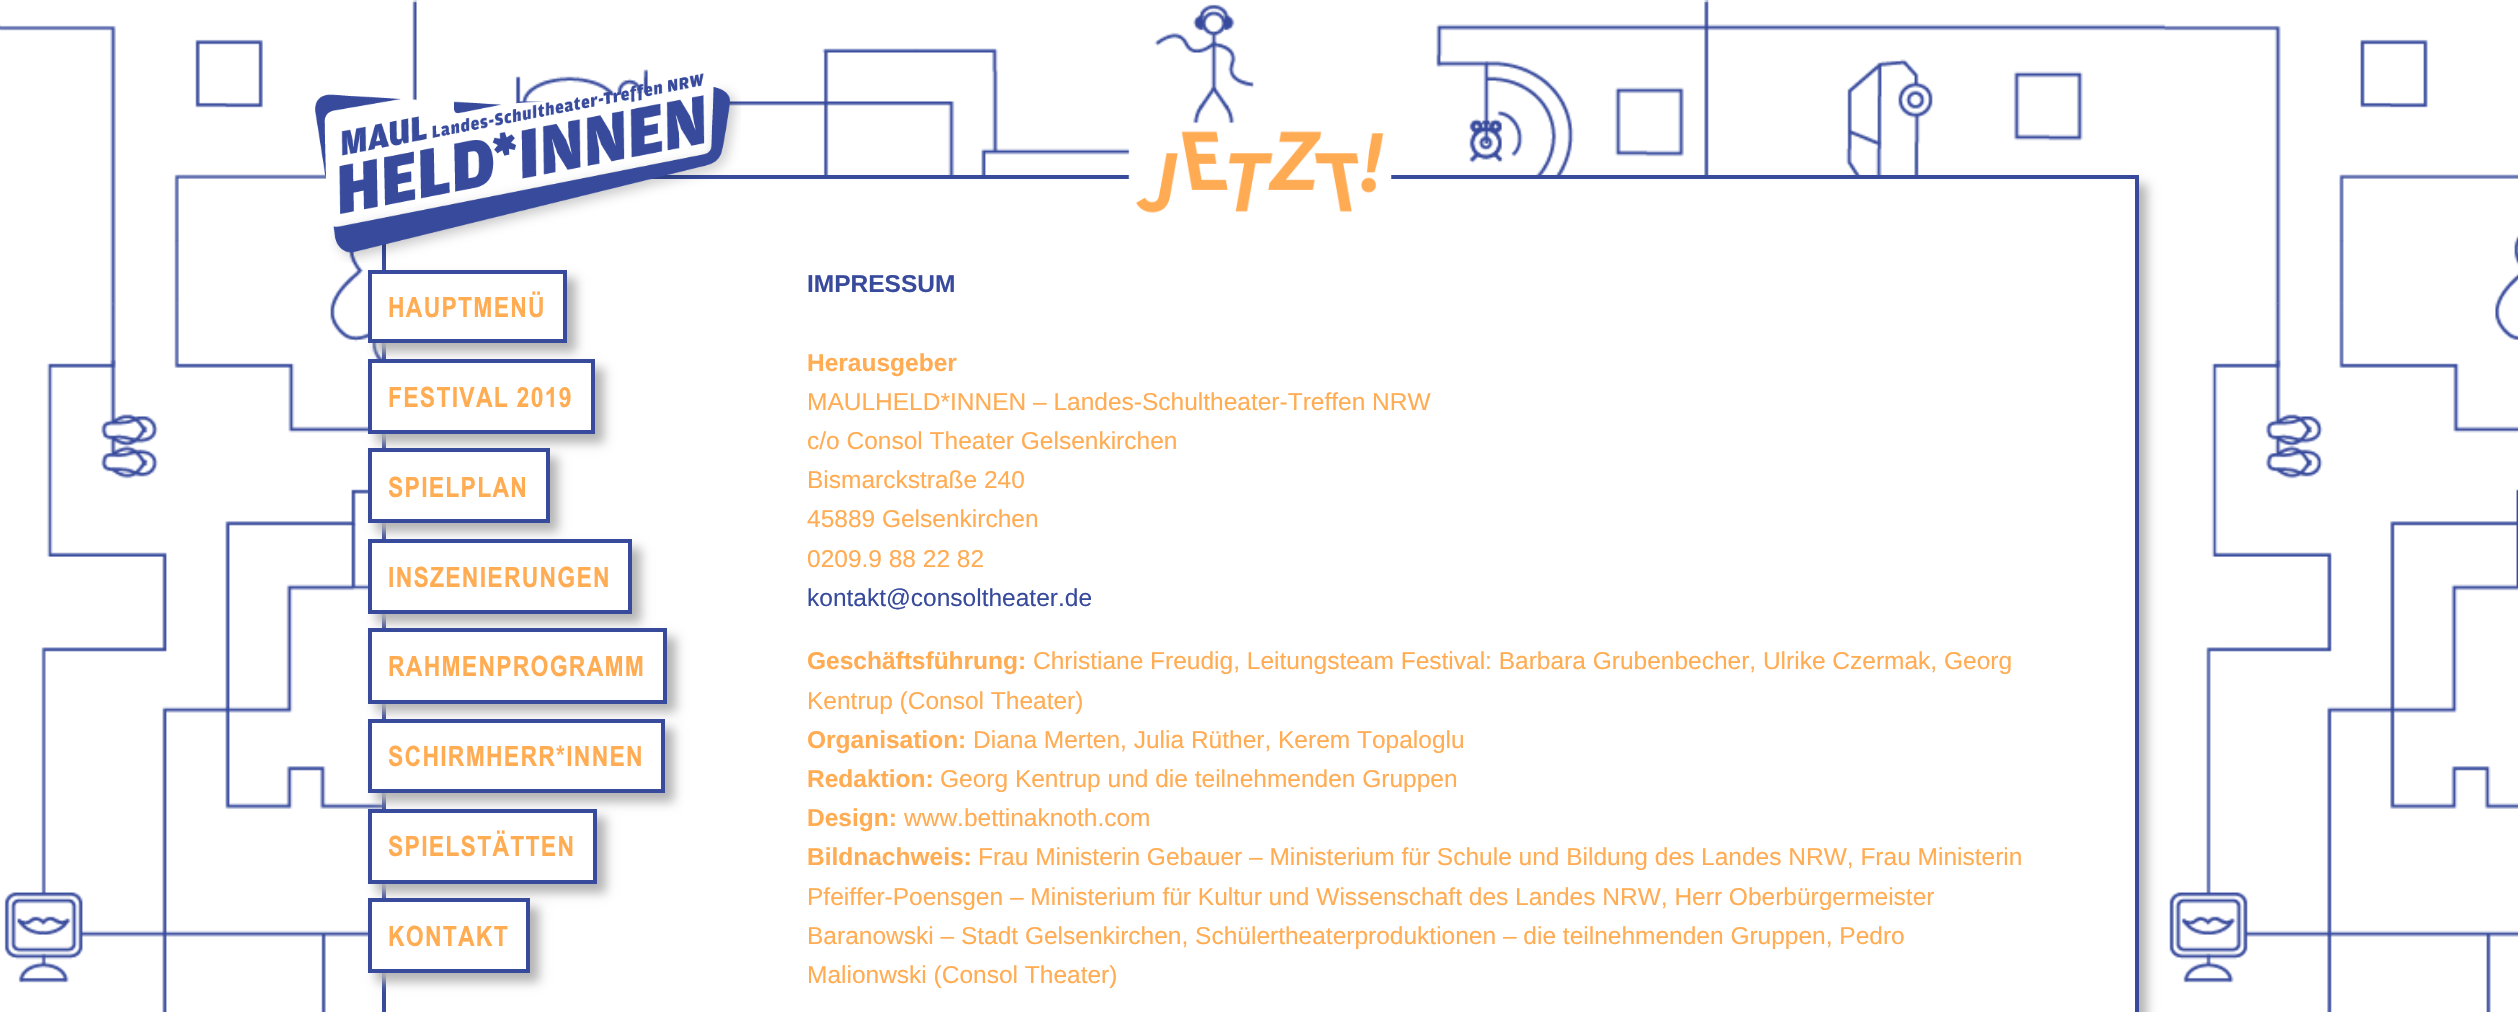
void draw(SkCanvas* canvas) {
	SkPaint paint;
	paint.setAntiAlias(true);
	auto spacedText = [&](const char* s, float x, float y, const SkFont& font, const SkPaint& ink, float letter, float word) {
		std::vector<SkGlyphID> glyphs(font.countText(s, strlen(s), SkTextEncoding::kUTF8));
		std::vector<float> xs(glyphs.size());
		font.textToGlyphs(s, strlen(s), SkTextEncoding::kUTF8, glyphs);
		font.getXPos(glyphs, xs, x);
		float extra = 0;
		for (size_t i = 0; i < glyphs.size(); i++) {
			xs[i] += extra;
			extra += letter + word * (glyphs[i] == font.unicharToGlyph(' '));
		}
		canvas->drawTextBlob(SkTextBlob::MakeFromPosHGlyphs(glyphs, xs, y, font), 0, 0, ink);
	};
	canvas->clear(0xffffffff);
	canvas->drawImageRect(SkImages::DeferredFromEncodedData(SkData::MakeFromFileName("img1.png")), SkRect::MakeXYWH(0, 0, 2518, 1012), SkSamplingOptions());
	paint.setColor(0xffb5b5b5);
	paint.setMaskFilter(SkMaskFilter::MakeBlur(kNormal_SkBlurStyle, 5));
	canvas->drawRect(SkRect::MakeXYWH(390, 184, 1757, 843), paint);
	paint.setMaskFilter(nullptr);
	paint.setColor(0xffffffff);
	canvas->drawRect(SkRect::MakeXYWH(384, 177, 1753, 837), paint);
	paint.setStroke(true);
	paint.setStrokeWidth(4);
	paint.setColor(0xff374a9c);
	canvas->drawRect(SkRect::MakeXYWH(384, 177, 1753, 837), paint);
	canvas->drawImageRect(SkImages::DeferredFromEncodedData(SkData::MakeFromFileName("img2.png")), SkRect::MakeXYWH(315, 73, 426, 190), SkSamplingOptions());
	canvas->drawImageRect(SkImages::DeferredFromEncodedData(SkData::MakeFromFileName("img3.png")), SkRect::MakeXYWH(1128, 122, 264, 91), SkSamplingOptions());
	paint.setStroke(false);
	paint.setColor(0xffb5b5b5);
	paint.setMaskFilter(SkMaskFilter::MakeBlur(kNormal_SkBlurStyle, 5));
	canvas->drawRect(SkRect::MakeXYWH(376, 278, 200, 74), paint);
	paint.setMaskFilter(nullptr);
	paint.setColor(0xffffffff);
	canvas->drawRect(SkRect::MakeXYWH(370, 272, 195, 69), paint);
	paint.setStroke(true);
	paint.setColor(0xff374a9c);
	canvas->drawRect(SkRect::MakeXYWH(370, 272, 195, 69), paint);
	SkFont f1(fontMgr->matchFamilyStyle("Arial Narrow", SkFontStyle::Bold()), 28);
	f1.setSubpixel(true);
	paint.setStroke(false);
	paint.setColor(0xffffac53);
	spacedText("HAUPTMENÜ", 388, 317, f1, paint, 1.25, 0);
	paint.setColor(0xffb5b5b5);
	paint.setMaskFilter(SkMaskFilter::MakeBlur(kNormal_SkBlurStyle, 5));
	canvas->drawRect(SkRect::MakeXYWH(376, 368, 228, 75), paint);
	paint.setMaskFilter(nullptr);
	paint.setColor(0xffffffff);
	canvas->drawRect(SkRect::MakeXYWH(370, 361, 223, 71), paint);
	paint.setStroke(true);
	paint.setColor(0xff374a9c);
	canvas->drawRect(SkRect::MakeXYWH(370, 361, 223, 71), paint);
	paint.setStroke(false);
	paint.setColor(0xffffac53);
	spacedText("FESTIVAL 2019", 388, 407, f1, paint, 1.25, 0);
	paint.setColor(0xffb5b5b5);
	paint.setMaskFilter(SkMaskFilter::MakeBlur(kNormal_SkBlurStyle, 5));
	canvas->drawRect(SkRect::MakeXYWH(376, 457, 182, 75), paint);
	paint.setMaskFilter(nullptr);
	paint.setColor(0xffffffff);
	canvas->drawRect(SkRect::MakeXYWH(370, 450, 178, 71), paint);
	paint.setStroke(true);
	paint.setColor(0xff374a9c);
	canvas->drawRect(SkRect::MakeXYWH(370, 450, 178, 71), paint);
	paint.setStroke(false);
	paint.setColor(0xffffac53);
	spacedText("SPIELPLAN", 388, 497, f1, paint, 1.25, 0);
	paint.setColor(0xffb5b5b5);
	paint.setMaskFilter(SkMaskFilter::MakeBlur(kNormal_SkBlurStyle, 5));
	canvas->drawRect(SkRect::MakeXYWH(376, 548, 265, 75), paint);
	paint.setMaskFilter(nullptr);
	paint.setColor(0xffffffff);
	canvas->drawRect(SkRect::MakeXYWH(370, 541, 260, 71), paint);
	paint.setStroke(true);
	paint.setColor(0xff374a9c);
	canvas->drawRect(SkRect::MakeXYWH(370, 541, 260, 71), paint);
	paint.setStroke(false);
	paint.setColor(0xffffac53);
	spacedText("INSZENIERUNGEN", 388, 587, f1, paint, 1.25, 0);
	paint.setColor(0xffb5b5b5);
	paint.setMaskFilter(SkMaskFilter::MakeBlur(kNormal_SkBlurStyle, 5));
	canvas->drawRect(SkRect::MakeXYWH(376, 637, 300, 75), paint);
	paint.setMaskFilter(nullptr);
	paint.setColor(0xffffffff);
	canvas->drawRect(SkRect::MakeXYWH(370, 630, 295, 72), paint);
	paint.setStroke(true);
	paint.setColor(0xff374a9c);
	canvas->drawRect(SkRect::MakeXYWH(370, 630, 295, 72), paint);
	paint.setStroke(false);
	paint.setColor(0xffffac53);
	spacedText("RAHMENPROGRAMM", 388, 676, f1, paint, 1.25, 0);
	paint.setColor(0xffb5b5b5);
	paint.setMaskFilter(SkMaskFilter::MakeBlur(kNormal_SkBlurStyle, 5));
	canvas->drawRect(SkRect::MakeXYWH(376, 728, 298, 74), paint);
	paint.setMaskFilter(nullptr);
	paint.setColor(0xffffffff);
	canvas->drawRect(SkRect::MakeXYWH(370, 721, 293, 70), paint);
	paint.setStroke(true);
	paint.setColor(0xff374a9c);
	canvas->drawRect(SkRect::MakeXYWH(370, 721, 293, 70), paint);
	paint.setStroke(false);
	paint.setColor(0xffffac53);
	spacedText("SCHIRMHERR*INNEN", 388, 766, f1, paint, 1.25, 0);
	paint.setColor(0xffb5b5b5);
	paint.setMaskFilter(SkMaskFilter::MakeBlur(kNormal_SkBlurStyle, 5));
	canvas->drawRect(SkRect::MakeXYWH(376, 817, 230, 76), paint);
	paint.setMaskFilter(nullptr);
	paint.setColor(0xffffffff);
	canvas->drawRect(SkRect::MakeXYWH(370, 811, 225, 71), paint);
	paint.setStroke(true);
	paint.setColor(0xff374a9c);
	canvas->drawRect(SkRect::MakeXYWH(370, 811, 225, 71), paint);
	paint.setStroke(false);
	paint.setColor(0xffffac53);
	spacedText("SPIELSTÄTTEN", 388, 856, f1, paint, 1.25, 0);
	paint.setColor(0xffb5b5b5);
	paint.setMaskFilter(SkMaskFilter::MakeBlur(kNormal_SkBlurStyle, 5));
	canvas->drawRect(SkRect::MakeXYWH(376, 907, 163, 75), paint);
	paint.setMaskFilter(nullptr);
	paint.setColor(0xffffffff);
	canvas->drawRect(SkRect::MakeXYWH(370, 900, 158, 71), paint);
	paint.setStroke(true);
	paint.setColor(0xff374a9c);
	canvas->drawRect(SkRect::MakeXYWH(370, 900, 158, 71), paint);
	paint.setStroke(false);
	paint.setColor(0xffffac53);
	spacedText("KONTAKT", 388, 946, f1, paint, 1.25, 0);
	SkFont f2(fontMgr->matchFamilyStyle("Liberation Sans", SkFontStyle::Bold()), 24.5);
	f2.setSubpixel(true);
	paint.setColor(0xff374a9c);
	canvas->drawString("IMPRESSUM", 807, 292, f2, paint);
	paint.setColor(0xffffac53);
	canvas->drawString("Herausgeber", 807, 371, f2, paint);
	SkFont f3(fontMgr->matchFamilyStyle("Liberation Sans", SkFontStyle::Normal()), 24.5);
	f3.setSubpixel(true);
	canvas->drawString("MAULHELD*INNEN – Landes-Schultheater-Treffen NRW", 807, 410, f3, paint);
	canvas->drawString("c/o Consol Theater Gelsenkirchen", 807, 449, f3, paint);
	canvas->drawString("Bismarckstraße 240", 807, 488, f3, paint);
	canvas->drawString("45889 Gelsenkirchen", 807, 527, f3, paint);
	canvas->drawString("0209.9 88 22 82", 807, 567, f3, paint);
	paint.setColor(0xff374a9c);
	canvas->drawString("kontakt@consoltheater.de", 807, 606, f3, paint);
	paint.setColor(0xffffac53);
	canvas->drawString("Geschäftsführung:", 807, 669, f2, paint);
	canvas->drawString("Christiane Freudig, Leitungsteam Festival: Barbara Grubenbecher, Ulrike Czermak, Georg", 1033, 669, f3, paint);
	canvas->drawString("Kentrup (Consol Theater)", 807, 709, f3, paint);
	canvas->drawString("Organisation:", 807, 748, f2, paint);
	canvas->drawString("Diana Merten, Julia Rüther, Kerem Topaloglu", 973, 748, f3, paint);
	canvas->drawString("Redaktion:", 807, 787, f2, paint);
	canvas->drawString("Georg Kentrup und die teilnehmenden Gruppen", 940, 787, f3, paint);
	canvas->drawString("Design:", 807, 826, f2, paint);
	canvas->drawString("www.bettinaknoth.com", 904, 826, f3, paint);
	canvas->drawString("Bildnachweis:", 807, 865, f2, paint);
	canvas->drawString("Frau Ministerin Gebauer – Ministerium für Schule und Bildung des Landes NRW, Frau Ministerin", 978, 865, f3, paint);
	canvas->drawString("Pfeiffer-Poensgen – Ministerium für Kultur und Wissenschaft des Landes NRW, Herr Oberbürgermeister", 807, 905, f3, paint);
	canvas->drawString("Baranowski – Stadt Gelsenkirchen, Schülertheaterproduktionen – die teilnehmenden Gruppen, Pedro", 807, 944, f3, paint);
	canvas->drawString("Malionwski (Consol Theater)", 807, 983, f3, paint);
}
